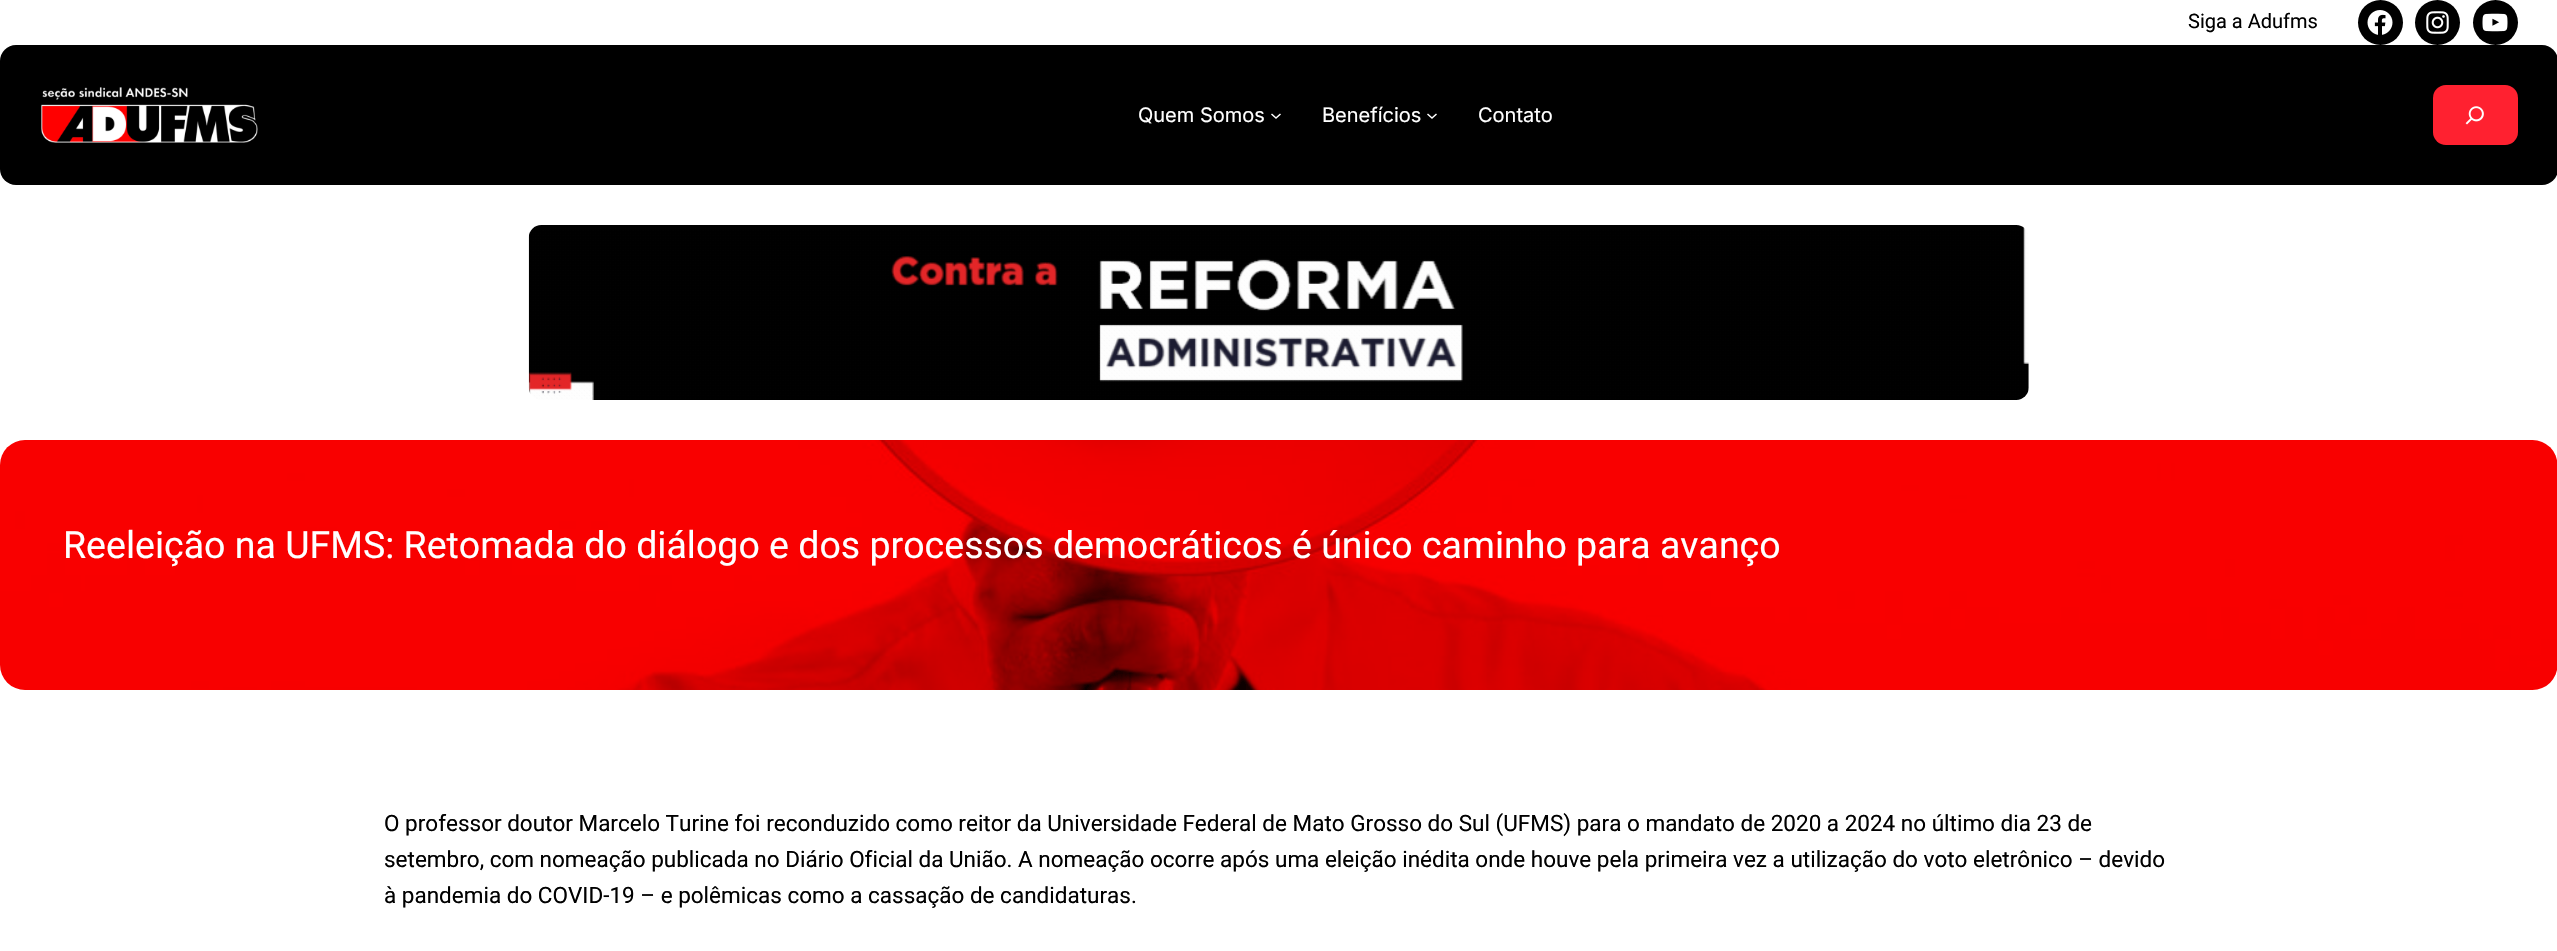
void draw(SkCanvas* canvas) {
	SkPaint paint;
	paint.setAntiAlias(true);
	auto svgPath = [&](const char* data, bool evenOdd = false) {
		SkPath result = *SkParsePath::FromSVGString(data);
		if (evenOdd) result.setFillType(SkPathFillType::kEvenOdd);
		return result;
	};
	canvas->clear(0xffffffff);
	SkFont f1(fontMgr->matchFamilyStyle("Roboto", SkFontStyle::Normal()), 20);
	f1.setSubpixel(true);
	paint.setColor(0xff000000);
	canvas->drawString("Siga a Adufms", 2188, 28, f1, paint);
	canvas->drawCircle(2380.5, 22.5, 22.5, paint);
	canvas->drawImageRect(SkImages::DeferredFromEncodedData(SkData::MakeFromFileName("img1.png")), SkRect::MakeXYWH(2367, 10, 26, 25), SkSamplingOptions());
	canvas->drawCircle(2437.5, 22.5, 22.5, paint);
	canvas->drawImageRect(SkImages::DeferredFromEncodedData(SkData::MakeFromFileName("img2.png")), SkRect::MakeXYWH(2426, 11, 23, 23), SkSamplingOptions());
	canvas->drawCircle(2495.5, 22.5, 22.5, paint);
	canvas->drawImageRect(SkImages::DeferredFromEncodedData(SkData::MakeFromFileName("img3.png")), SkRect::MakeXYWH(2482, 13, 26, 19), SkSamplingOptions());
	canvas->drawRoundRect(SkRect::MakeXYWH(0, 45, 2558, 140), 16, 16, paint);
	canvas->drawImageRect(SkImages::DeferredFromEncodedData(SkData::MakeFromFileName("img4.png")), SkRect::MakeXYWH(41, 87, 217, 56), SkSamplingOptions());
	SkFont f2(fontMgr->matchFamilyStyle("Inter", SkFontStyle::Normal()), 20);
	f2.setSubpixel(true);
	paint.setColor(0xffffffff);
	canvas->drawString("Quem Somos", 1138, 122, f2, paint);
	paint.setStroke(true);
	paint.setStrokeWidth(1.5);
	canvas->drawPath(svgPath("M1271.5 114L1276 118L1280.5 114"), paint);
	paint.setStroke(false);
	canvas->drawString("Benefícios", 1322, 122, f2, paint);
	paint.setStroke(true);
	canvas->drawPath(svgPath("M1427.5 114L1432 118L1436.5 114"), paint);
	paint.setStroke(false);
	canvas->drawString("Contato", 1478, 122, f2, paint);
	paint.setColor(0xffff2130);
	canvas->drawRoundRect(SkRect::MakeXYWH(2433, 85, 85, 60), 13, 13, paint);
	canvas->drawImageRect(SkImages::DeferredFromEncodedData(SkData::MakeFromFileName("img5.png")), SkRect::MakeXYWH(2465, 106, 19, 19), SkSamplingOptions());
	canvas->drawImageRect(SkImages::DeferredFromEncodedData(SkData::MakeFromFileName("img6.png")), SkRect::MakeXYWH(528, 225, 1501, 175), SkSamplingOptions());
	canvas->drawImageRect(SkImages::DeferredFromEncodedData(SkData::MakeFromFileName("img7.png")), SkRect::MakeXYWH(0, 440, 2557, 250), SkSamplingOptions());
	SkFont f3(fontMgr->matchFamilyStyle("Roboto", SkFontStyle::Normal()), 37.5);
	f3.setSubpixel(true);
	paint.setColor(0xffffffff);
	canvas->drawString("Reeleição na UFMS: Retomada do diálogo e dos processos democráticos é único caminho para avanço", 63, 558, f3, paint);
	SkFont f4(fontMgr->matchFamilyStyle("Roboto", SkFontStyle::Normal()), 22.5);
	f4.setSubpixel(true);
	paint.setColor(0xff000000);
	canvas->drawString("O professor doutor Marcelo Turine foi reconduzido como reitor da Universidade Federal de Mato Grosso do Sul (UFMS) para o mandato de 2020 a 2024 no último dia 23 de", 384, 831, f4, paint);
	canvas->drawString("setembro, com nomeação publicada no Diário Oficial da União. A nomeação ocorre após uma eleição inédita onde houve pela primeira vez a utilização do voto eletrônico – devido", 384, 867, f4, paint);
	canvas->drawString("à pandemia do COVID-19 – e polêmicas como a cassação de candidaturas.", 384, 903, f4, paint);
}
